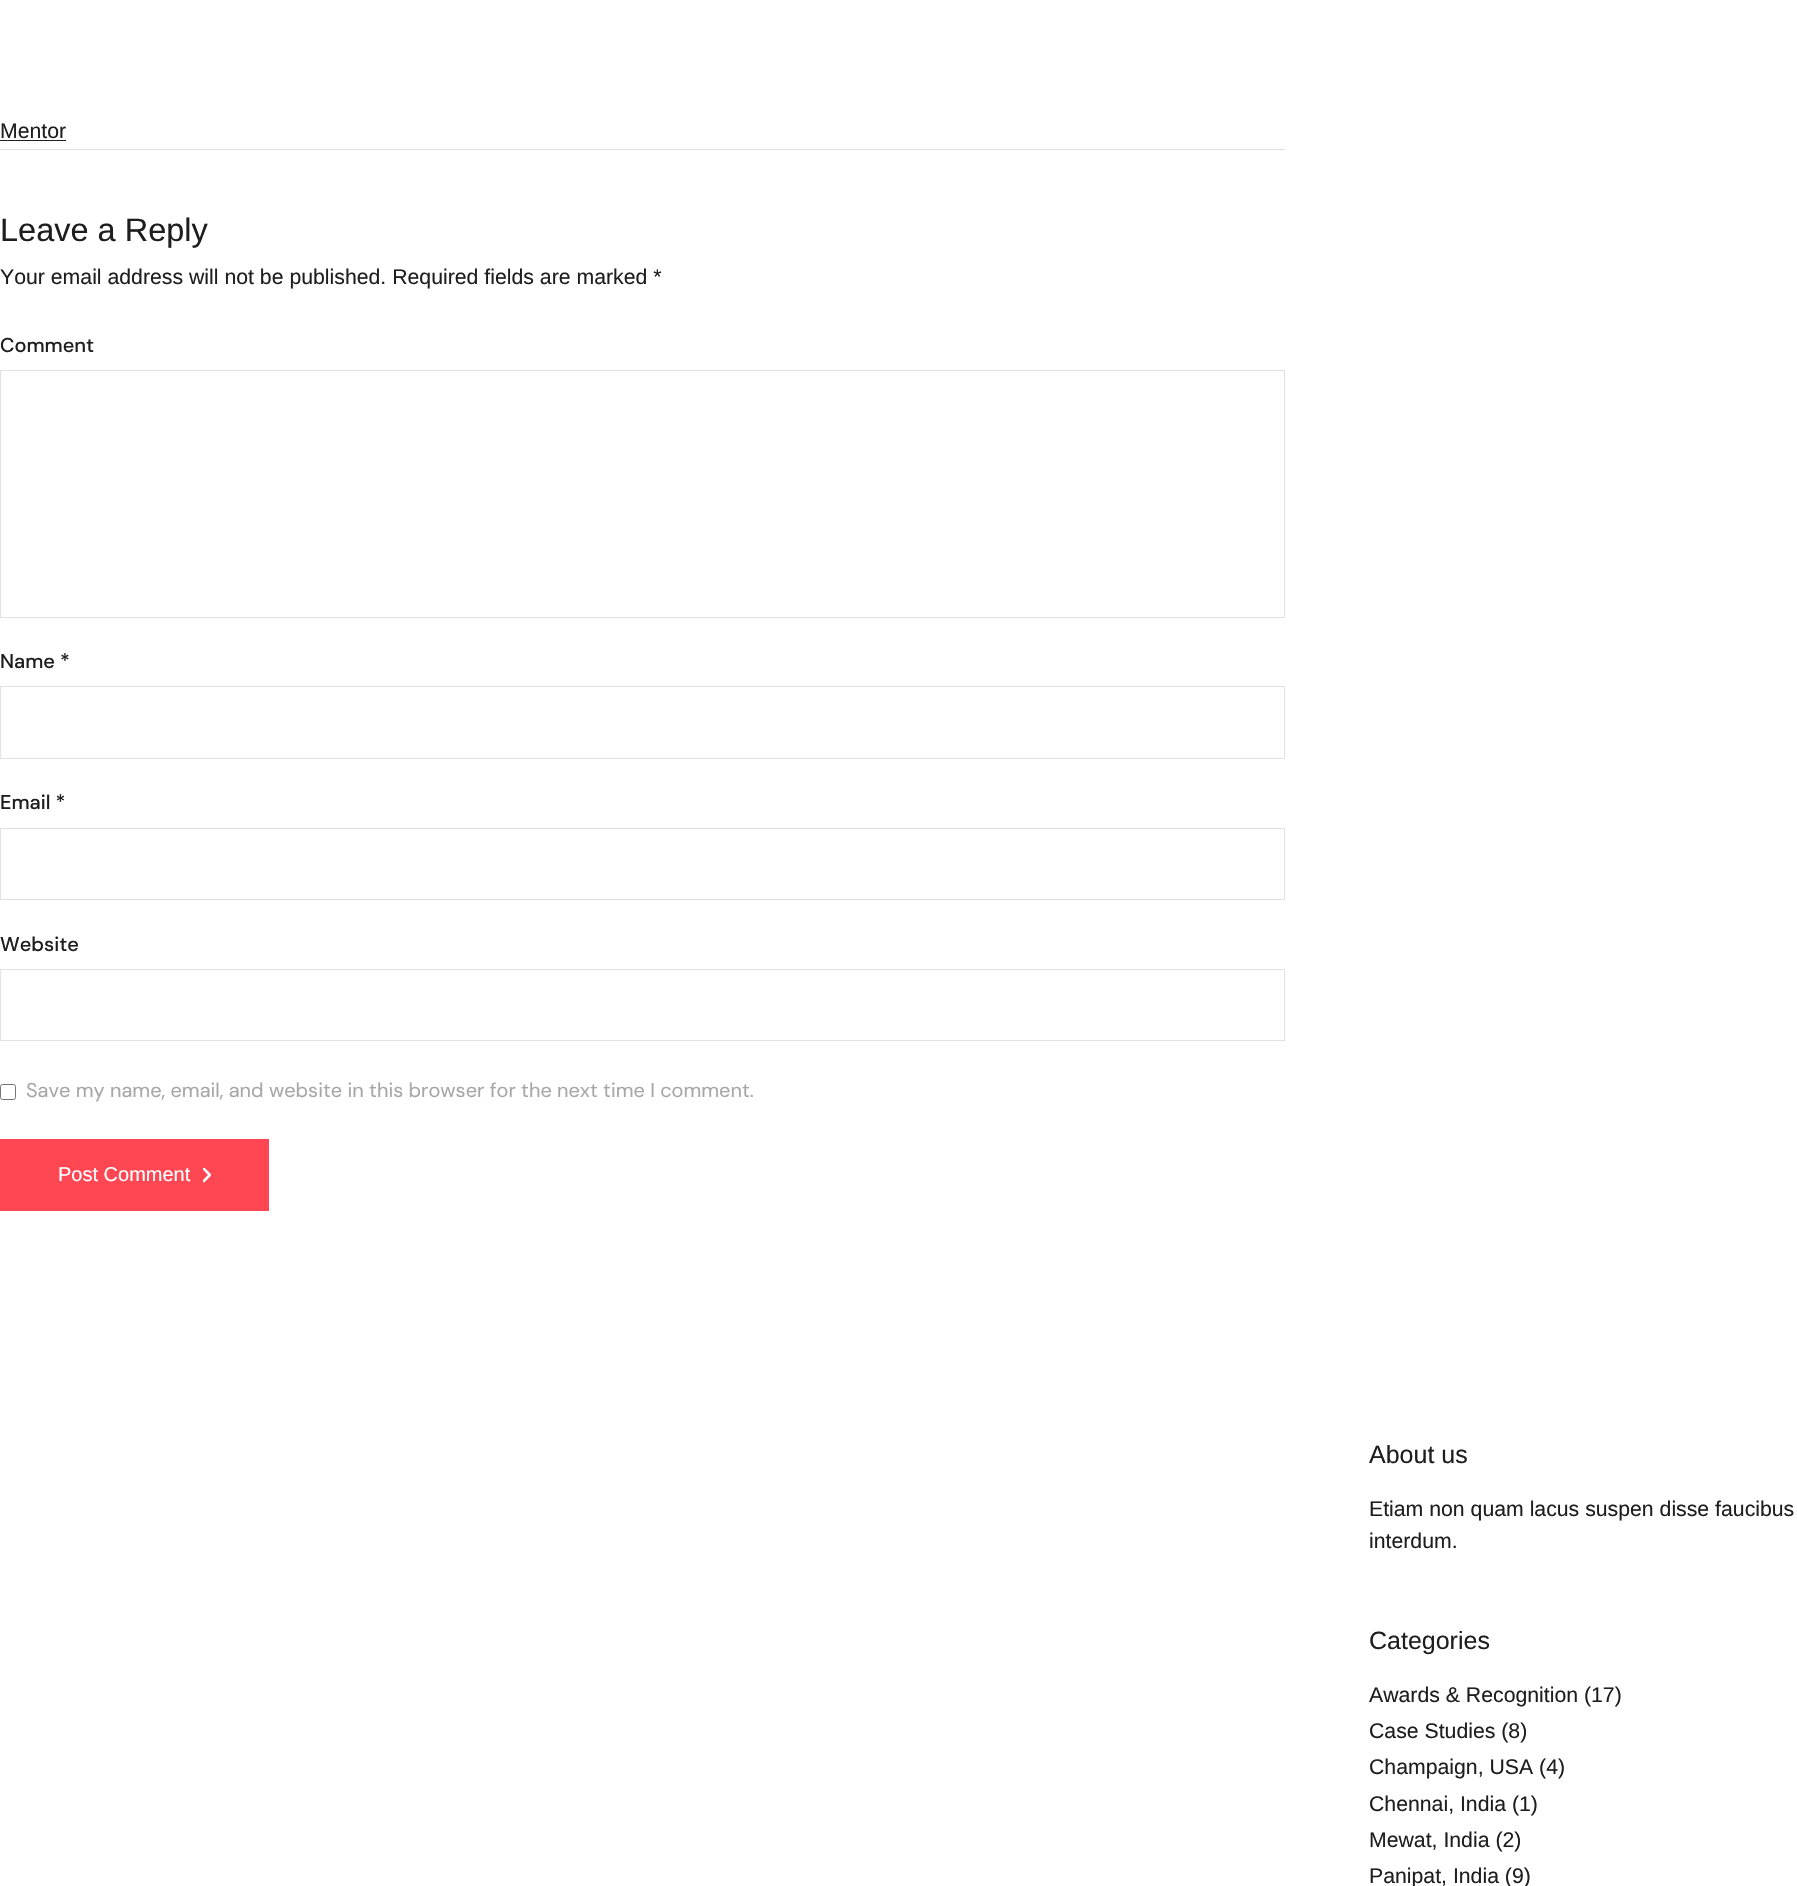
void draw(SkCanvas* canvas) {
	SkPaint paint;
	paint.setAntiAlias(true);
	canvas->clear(0xffffffff);
	paint.setColor(0xffe1e1e1);
	canvas->drawRect(SkRect::MakeXYWH(0, 149, 1285, 1), paint);
	SkFont f1(fontMgr->matchFamilyStyle("Liberation Sans", SkFontStyle::Normal()), 21.25);
	f1.setSubpixel(true);
	paint.setColor(0xff1e1e1e);
	canvas->drawString("Mentor", 0, 138, f1, paint);
	canvas->drawRect(SkRect::MakeXYWH(0, 140, 66, 1), paint);
	SkFont f2(fontMgr->matchFamilyStyle("Liberation Sans", SkFontStyle::Normal()), 32.5);
	f2.setSubpixel(true);
	canvas->drawString("Leave a Reply", 0, 241, f2, paint);
	canvas->drawString("Your email address will not be published. Required fields are marked *", 0, 284, f1, paint);
	SkFont f3(fontMgr->matchFamilyStyle("DM Sans", SkFontStyle(500, SkFontStyle::kNormal_Width, SkFontStyle::kUpright_Slant)), 20);
	f3.setSubpixel(true);
	canvas->drawString("Comment", 0, 352, f3, paint);
	paint.setStroke(true);
	paint.setStrokeWidth(1);
	paint.setColor(0xffe1e1e1);
	canvas->drawRect(SkRect::MakeXYWH(0.5, 370.5, 1284, 247), paint);
	paint.setStroke(false);
	paint.setColor(0xff1e1e1e);
	canvas->drawString("Name *", 0, 668, f3, paint);
	paint.setStroke(true);
	paint.setColor(0xffe1e1e1);
	canvas->drawRect(SkRect::MakeXYWH(0.5, 686.5, 1284, 72), paint);
	paint.setStroke(false);
	paint.setColor(0xff1e1e1e);
	canvas->drawString("Email *", 0, 809, f3, paint);
	paint.setStroke(true);
	paint.setColor(0xffe1e1e1);
	canvas->drawRect(SkRect::MakeXYWH(0.5, 828.5, 1284, 71), paint);
	paint.setStroke(false);
	paint.setColor(0xff1e1e1e);
	canvas->drawString("Website", 0, 951, f3, paint);
	paint.setStroke(true);
	paint.setColor(0xffe1e1e1);
	canvas->drawRect(SkRect::MakeXYWH(0.5, 969.5, 1284, 71), paint);
	paint.setColor(0xff767676);
	canvas->drawRoundRect(SkRect::MakeXYWH(0.5, 1084.5, 15, 15), 2, 2, paint);
	SkFont f4(fontMgr->matchFamilyStyle("DM Sans", SkFontStyle::Normal()), 20);
	f4.setSubpixel(true);
	paint.setStroke(false);
	paint.setColor(0xffa8a7a7);
	canvas->drawString("Save my name, email, and website in this browser for the next time I comment.", 26, 1097, f4, paint);
	paint.setColor(0xffff4653);
	canvas->drawRect(SkRect::MakeXYWH(0, 1139, 269, 72), paint);
	SkFont f5(fontMgr->matchFamilyStyle("Liberation Sans", SkFontStyle::Normal()), 20);
	f5.setSubpixel(true);
	paint.setColor(0xffffffff);
	canvas->drawString("Post Comment", 58, 1181, f5, paint);
	canvas->drawImageRect(SkImages::DeferredFromEncodedData(SkData::MakeFromFileName("img1.png")), SkRect::MakeXYWH(203, 1168, 8, 15), SkSamplingOptions());
	SkFont f6(fontMgr->matchFamilyStyle("Liberation Sans", SkFontStyle::Normal()), 25);
	f6.setSubpixel(true);
	paint.setColor(0xff1e1e1e);
	canvas->drawString("About us", 1369, 1463, f6, paint);
	canvas->drawString("Etiam non quam lacus suspen disse faucibus", 1369, 1516, f1, paint);
	canvas->drawString("interdum.", 1369, 1548, f1, paint);
	canvas->drawString("Categories", 1369, 1649, f6, paint);
	canvas->drawString("Awards & Recognition (17)", 1369, 1702, f1, paint);
	canvas->drawString("Case Studies (8)", 1369, 1738, f1, paint);
	canvas->drawString("Champaign, USA (4)", 1369, 1774, f1, paint);
	canvas->drawString("Chennai, India (1)", 1369, 1811, f1, paint);
	canvas->drawString("Mewat, India (2)", 1369, 1847, f1, paint);
	canvas->drawString("Panipat, India (9)", 1369, 1883, f1, paint);
}
